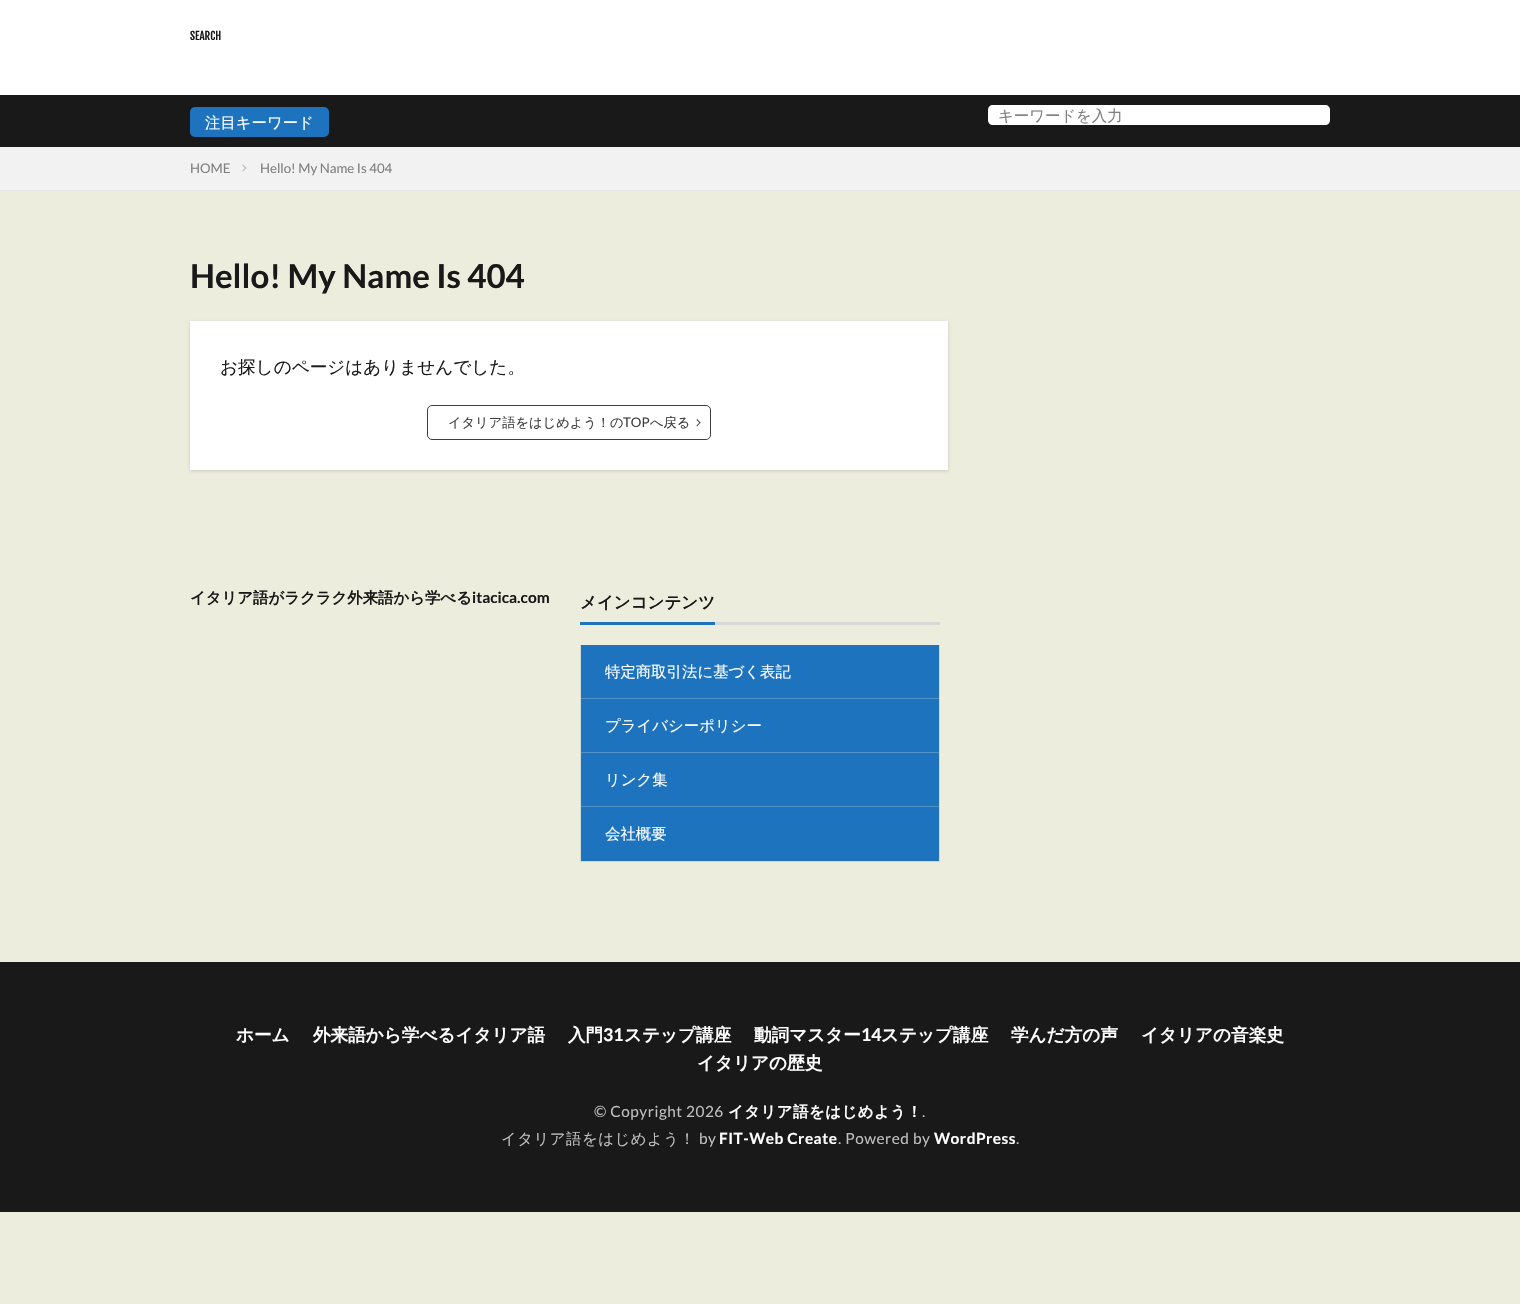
void draw(SkCanvas* canvas) {
	SkPaint paint;
	paint.setAntiAlias(true);
	auto spacedText = [&](const char* s, float x, float y, const SkFont& font, const SkPaint& ink, float letter, float word) {
		std::vector<SkGlyphID> glyphs(font.countText(s, strlen(s), SkTextEncoding::kUTF8));
		std::vector<float> xs(glyphs.size());
		font.textToGlyphs(s, strlen(s), SkTextEncoding::kUTF8, glyphs);
		font.getXPos(glyphs, xs, x);
		float extra = 0;
		for (size_t i = 0; i < glyphs.size(); i++) {
			xs[i] += extra;
			extra += letter + word * (glyphs[i] == font.unicharToGlyph(' '));
		}
		canvas->drawTextBlob(SkTextBlob::MakeFromPosHGlyphs(glyphs, xs, y, font), 0, 0, ink);
	};
	auto svgPath = [&](const char* data, bool evenOdd = false) {
		SkPath result = *SkParsePath::FromSVGString(data);
		if (evenOdd) result.setFillType(SkPathFillType::kEvenOdd);
		return result;
	};
	canvas->clear(0xffededde);
	paint.setColor(0xffffffff);
	canvas->drawRect(SkRect::MakeXYWH(0, 0, 1520, 95), paint);
	SkFont f1(fontMgr->matchFamilyStyle("Fjalla One", SkFontStyle::Normal()), 11);
	f1.setSubpixel(true);
	paint.setColor(0xff191919);
	canvas->drawString("SEARCH", 190, 40, f1, paint);
	canvas->drawRect(SkRect::MakeXYWH(0, 95, 1520, 52), paint);
	paint.setColor(0xff1e73be);
	canvas->drawRoundRect(SkRect::MakeXYWH(190, 107, 139, 30), 5, 5, paint);
	SkFont f2(fontMgr->matchFamilyStyle("WenQuanYi Zen Hei", SkFontStyle(500, SkFontStyle::kNormal_Width, SkFontStyle::kUpright_Slant)), 15.4);
	f2.setSubpixel(true);
	paint.setColor(0xffffffff);
	canvas->drawString("注目キーワード", 205, 128, f2, paint);
	canvas->drawPath(svgPath("M993 105H1286V125H993C990 125 988 123 988 120V110C988 107 990 105 993 105Z"), paint);
	paint.setColor(0xff7f7f7f);
	canvas->drawString("キーワードを入力", 998, 121, f2, paint);
	paint.setColor(0xffffffff);
	canvas->drawPath(svgPath("M1286 105H1325C1328 105 1330 107 1330 110V120C1330 123 1328 125 1325 125H1286Z"), paint);
	paint.setColor(0xfff2f2f2);
	canvas->drawRect(SkRect::MakeXYWH(0, 147, 1520, 43), paint);
	paint.setColor(0xffe6e6e6);
	canvas->drawRect(SkRect::MakeXYWH(0, 190, 1520, 1), paint);
	SkFont f3(fontMgr->matchFamilyStyle("Lato", SkFontStyle::Normal()), 13.25);
	f3.setSubpixel(true);
	paint.setColor(0xff7f7f7f);
	canvas->drawString("HOME", 190, 173, f3, paint);
	paint.setColor(0xffbfbfbf);
	canvas->drawPath(svgPath("M243 164.5L246.5 168L245.5 169L242 165Z"), paint);
	canvas->drawPath(svgPath("M245.5 167.5L246.5 168L243 171.5L242 171Z"), paint);
	paint.setColor(0xff7f7f7f);
	canvas->drawString("Hello! My Name Is 404", 260, 173, f3, paint);
	SkFont f4(fontMgr->matchFamilyStyle("Lato", SkFontStyle::Bold()), 33);
	f4.setSubpixel(true);
	paint.setColor(0xff191919);
	canvas->drawString("Hello! My Name Is 404", 190, 288, f4, paint);
	paint.setColor(0x26000000);
	paint.setMaskFilter(SkMaskFilter::MakeBlur(kNormal_SkBlurStyle, 1.5));
	canvas->drawRect(SkRect::MakeXYWH(190, 322, 758, 149), paint);
	paint.setMaskFilter(nullptr);
	paint.setColor(0xffffffff);
	canvas->drawRect(SkRect::MakeXYWH(190, 321, 758, 149), paint);
	SkFont f5(fontMgr->matchFamilyStyle("WenQuanYi Zen Hei", SkFontStyle(500, SkFontStyle::kNormal_Width, SkFontStyle::kUpright_Slant)), 17.6);
	f5.setSubpixel(true);
	paint.setColor(0xff191919);
	canvas->drawString("お探しのページはありませんでした。", 220, 373, f5, paint);
	paint.setStroke(true);
	paint.setStrokeWidth(1);
	paint.setColor(0xff3f3f3f);
	canvas->drawRoundRect(SkRect::MakeXYWH(427.5, 405.5, 283, 34), 4.5, 4.5, paint);
	SkFont f6(fontMgr->matchFamilyStyle("WenQuanYi Zen Hei", SkFontStyle(500, SkFontStyle::kNormal_Width, SkFontStyle::kUpright_Slant)), 13.25);
	f6.setSubpixel(true);
	paint.setStroke(false);
	canvas->drawString("イタリア語をはじめよう！の", 448, 427, f6, paint);
	canvas->drawString("TOP", 623, 427, f3, paint);
	canvas->drawString("へ戻る", 650, 427, f6, paint);
	canvas->drawPath(svgPath("M697 419L700.5 422.5L700 423.5L696.5 420Z"), paint);
	canvas->drawPath(svgPath("M700 422L700.5 422.5L697 426.5L696.5 425.5Z"), paint);
	SkFont f7(fontMgr->matchFamilyStyle("WenQuanYi Zen Hei", SkFontStyle::Bold()), 15.4);
	f7.setSubpixel(true);
	paint.setColor(0xff191919);
	canvas->drawString("イタリア語がラクラク外来語から学べる", 190, 603, f7, paint);
	SkFont f8(fontMgr->matchFamilyStyle("Lato", SkFontStyle::Bold()), 15.4);
	f8.setSubpixel(true);
	canvas->drawString("itacica.com", 472, 603, f8, paint);
	SkFont f9(fontMgr->matchFamilyStyle("WenQuanYi Zen Hei", SkFontStyle::Bold()), 16.5);
	f9.setSubpixel(true);
	canvas->drawString("メインコンテンツ", 580, 608, f9, paint);
	paint.setColor(0xff1e73be);
	canvas->drawRect(SkRect::MakeXYWH(580, 622, 135, 3), paint);
	paint.setColor(0xffd8d8d8);
	canvas->drawRect(SkRect::MakeXYWH(715, 622, 225, 3), paint);
	paint.setColor(0xffcedbd9);
	canvas->drawPath(svgPath("M940 645V862L939 861V645Z"), paint);
	paint.setColor(0x261e73be);
	canvas->drawPath(svgPath("M940 862H580L581 861H939Z"), paint);
	canvas->drawPath(svgPath("M580 862V645H581V861Z"), paint);
	paint.setColor(0xff1e73be);
	canvas->drawRect(SkRect::MakeXYWH(581, 645, 358, 53), paint);
	paint.setColor(0xffffffff);
	canvas->drawString("特定商取引法に基づく表記", 605, 677, f2, paint);
	paint.setColor(0xff5292c6);
	canvas->drawRect(SkRect::MakeXYWH(581, 698, 358, 1), paint);
	paint.setColor(0xff1e73be);
	canvas->drawRect(SkRect::MakeXYWH(581, 699, 358, 53), paint);
	paint.setColor(0xffffffff);
	canvas->drawString("プライバシーポリシー", 605, 731, f2, paint);
	paint.setColor(0xff5292c6);
	canvas->drawRect(SkRect::MakeXYWH(581, 752, 358, 1), paint);
	paint.setColor(0xff1e73be);
	canvas->drawRect(SkRect::MakeXYWH(581, 753, 358, 53), paint);
	paint.setColor(0xffffffff);
	canvas->drawString("リンク集", 605, 785, f2, paint);
	paint.setColor(0xff5292c6);
	canvas->drawRect(SkRect::MakeXYWH(581, 806, 358, 1), paint);
	paint.setColor(0xff1e73be);
	canvas->drawRect(SkRect::MakeXYWH(581, 807, 358, 54), paint);
	paint.setColor(0xffffffff);
	canvas->drawString("会社概要", 605, 839, f2, paint);
	paint.setColor(0xff191919);
	canvas->drawRect(SkRect::MakeXYWH(0, 962, 1520, 250), paint);
	SkFont f10(fontMgr->matchFamilyStyle("WenQuanYi Zen Hei", SkFontStyle::Bold()), 17.6);
	f10.setSubpixel(true);
	paint.setColor(0xffffffff);
	canvas->drawString("ホーム", 236, 1041, f10, paint);
	canvas->drawString("外来語から学べるイタリア語", 313, 1041, f10, paint);
	canvas->drawString("入門", 568, 1041, f10, paint);
	SkFont f11(fontMgr->matchFamilyStyle("Lato", SkFontStyle::Bold()), 17.6);
	f11.setSubpixel(true);
	canvas->drawString("31", 603, 1041, f11, paint);
	canvas->drawString("ステップ講座", 624, 1041, f10, paint);
	canvas->drawString("動詞マスター", 754, 1041, f10, paint);
	canvas->drawString("14", 861, 1041, f11, paint);
	canvas->drawString("ステップ講座", 881, 1041, f10, paint);
	canvas->drawString("学んだ方の声", 1011, 1041, f10, paint);
	canvas->drawString("イタリアの音楽史", 1141, 1041, f10, paint);
	canvas->drawString("イタリアの歴史", 697, 1069, f10, paint);
	SkFont f12(fontMgr->matchFamilyStyle("Lato", SkFontStyle::Normal()), 15.4);
	f12.setSubpixel(true);
	paint.setColor(0xffbfbfbf);
	spacedText("© Copyright 2026", 594, 1117, f12, paint, 0.5, 0);
	paint.setColor(0xffffffff);
	spacedText("イタリア語をはじめよう！", 728, 1117, f7, paint, 0.5, 0);
	paint.setColor(0xffbfbfbf);
	spacedText(".", 922, 1117, f12, paint, 0.5, 0);
	spacedText("イタリア語をはじめよう！", 501, 1144, f2, paint, 0.5, 0);
	spacedText("by", 699, 1144, f12, paint, 0.5, 0);
	paint.setColor(0xffffffff);
	spacedText("FIT-Web Create", 719, 1144, f8, paint, 0.5, 0);
	paint.setColor(0xffbfbfbf);
	spacedText(". Powered by", 838, 1144, f12, paint, 0.5, 0);
	paint.setColor(0xffffffff);
	spacedText("WordPress", 934, 1144, f8, paint, 0.5, 0);
	paint.setColor(0xffbfbfbf);
	spacedText(".", 1016, 1144, f12, paint, 0.5, 0);
}
